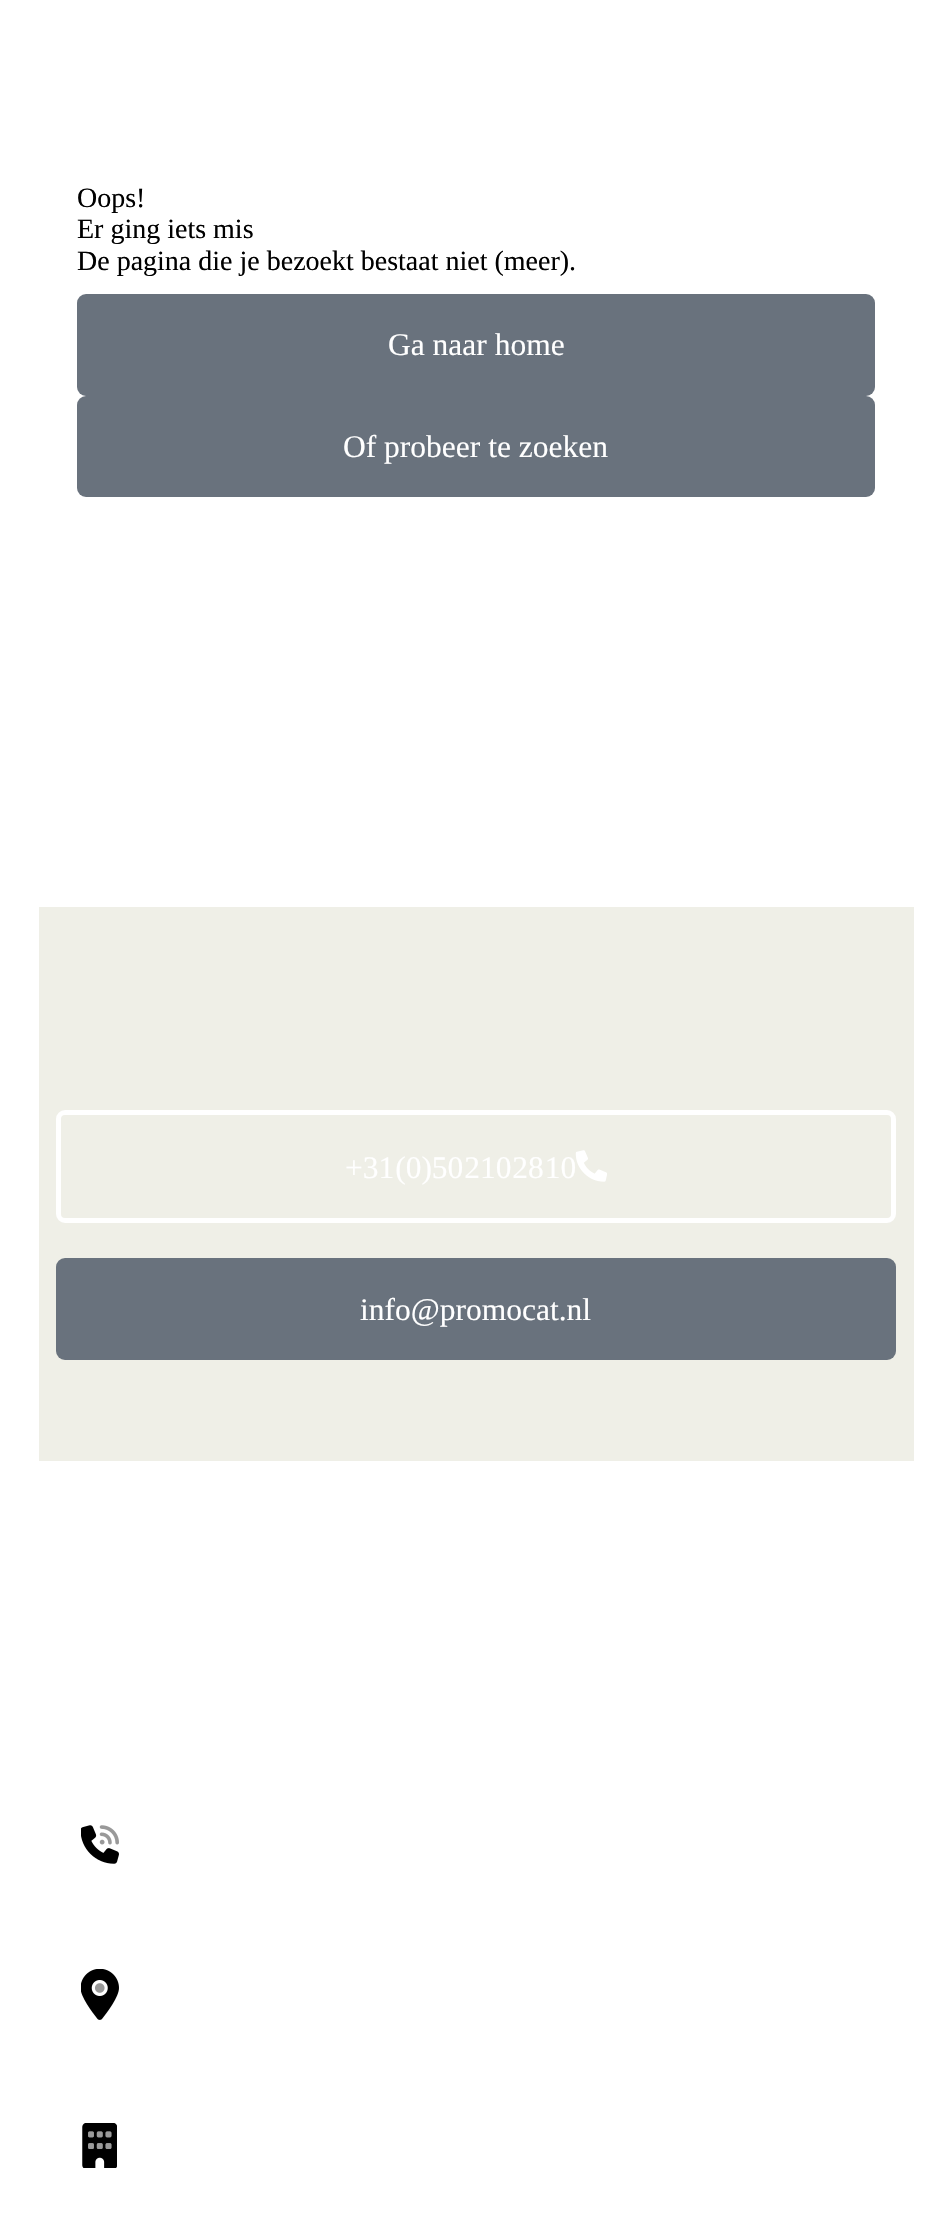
void draw(SkCanvas* canvas) {
	SkPaint paint;
	paint.setAntiAlias(true);
	auto spacedText = [&](const char* s, float x, float y, const SkFont& font, const SkPaint& ink, float letter, float word) {
		std::vector<SkGlyphID> glyphs(font.countText(s, strlen(s), SkTextEncoding::kUTF8));
		std::vector<float> xs(glyphs.size());
		font.textToGlyphs(s, strlen(s), SkTextEncoding::kUTF8, glyphs);
		font.getXPos(glyphs, xs, x);
		float extra = 0;
		for (size_t i = 0; i < glyphs.size(); i++) {
			xs[i] += extra;
			extra += letter + word * (glyphs[i] == font.unicharToGlyph(' '));
		}
		canvas->drawTextBlob(SkTextBlob::MakeFromPosHGlyphs(glyphs, xs, y, font), 0, 0, ink);
	};
	canvas->clear(0xffffffff);
	SkFont f1(fontMgr->matchFamilyStyle("Liberation Serif", SkFontStyle::Normal()), 28);
	f1.setSubpixel(true);
	paint.setColor(0xff000000);
	canvas->drawString("Oops!", 77, 207, f1, paint);
	canvas->drawString("Er ging iets mis", 77, 238, f1, paint);
	canvas->drawString("De pagina die je bezoekt bestaat niet (meer).", 77, 270, f1, paint);
	paint.setColor(0xff69727d);
	canvas->drawRoundRect(SkRect::MakeXYWH(77, 294, 798, 102), 9, 9, paint);
	SkFont f2(fontMgr->matchFamilyStyle("Liberation Serif", SkFontStyle::Normal()), 31.5);
	f2.setSubpixel(true);
	paint.setColor(0xffffffff);
	canvas->drawString("Ga naar home", 388, 355, f2, paint);
	paint.setColor(0xff69727d);
	canvas->drawRoundRect(SkRect::MakeXYWH(77, 396, 798, 101), 9, 9, paint);
	paint.setColor(0xffffffff);
	canvas->drawString("Of probeer te zoeken", 343, 457, f2, paint);
	paint.setColor(0xffefefe7);
	canvas->drawRect(SkRect::MakeXYWH(39, 907, 875, 554), paint);
	paint.setStroke(true);
	paint.setStrokeWidth(5);
	paint.setColor(0xffffffff);
	canvas->drawRoundRect(SkRect::MakeXYWH(58.5, 1112.5, 835, 108), 6.5, 6.5, paint);
	paint.setStroke(false);
	spacedText("+31 (0)50 210 28 10", 345, 1178, f2, paint, 0, -7);
	canvas->drawImageRect(SkImages::DeferredFromEncodedData(SkData::MakeFromFileName("img1.png")), SkRect::MakeXYWH(575, 1150, 32, 32), SkSamplingOptions());
	paint.setColor(0xff69727d);
	canvas->drawRoundRect(SkRect::MakeXYWH(56, 1258, 840, 102), 9, 9, paint);
	paint.setColor(0xffffffff);
	canvas->drawString("info@promocat.nl", 360, 1320, f2, paint);
	canvas->drawImageRect(SkImages::DeferredFromEncodedData(SkData::MakeFromFileName("img2.png")), SkRect::MakeXYWH(81, 1825, 38, 39), SkSamplingOptions());
	canvas->drawImageRect(SkImages::DeferredFromEncodedData(SkData::MakeFromFileName("img3.png")), SkRect::MakeXYWH(81, 1969, 38, 51), SkSamplingOptions());
	canvas->drawImageRect(SkImages::DeferredFromEncodedData(SkData::MakeFromFileName("img4.png")), SkRect::MakeXYWH(82, 2123, 35, 45), SkSamplingOptions());
}
